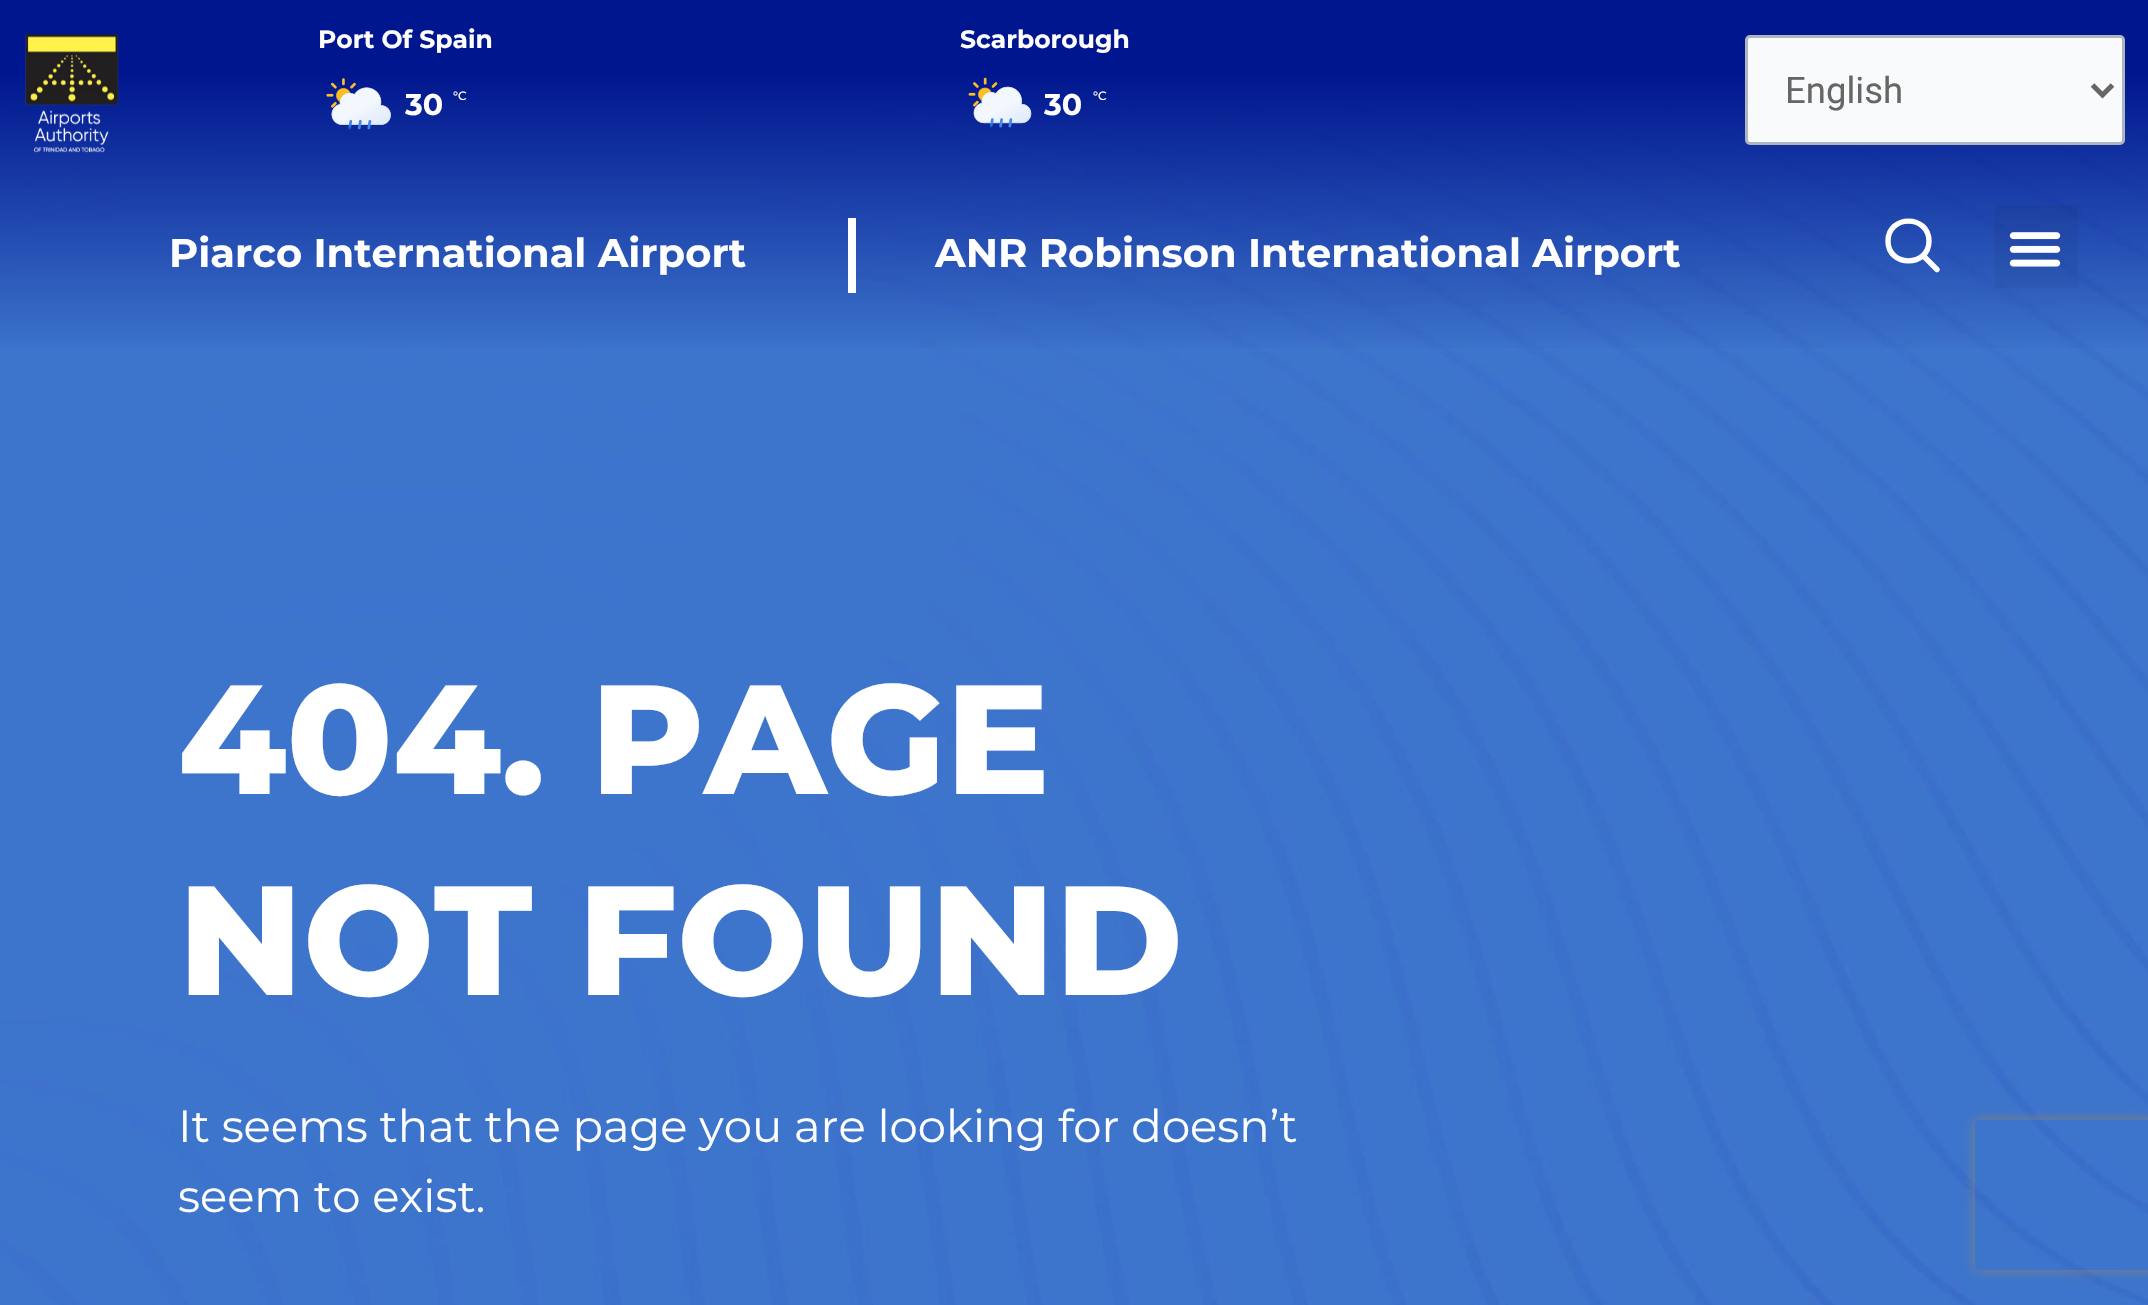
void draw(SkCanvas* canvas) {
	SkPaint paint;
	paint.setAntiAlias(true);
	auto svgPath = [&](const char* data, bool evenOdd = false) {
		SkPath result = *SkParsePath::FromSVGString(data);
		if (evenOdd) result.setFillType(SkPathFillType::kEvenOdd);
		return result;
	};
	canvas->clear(0xffffffff);
	canvas->drawImageRect(SkImages::DeferredFromEncodedData(SkData::MakeFromFileName("img5.png")), SkRect::MakeXYWH(0, 77, 2148, 1228), SkSamplingOptions());
	{
		const SkColor colors[] = {0xff00168e, 0x0000168e};
		const float stops[] = {0.2, 0.95};
		const SkPoint ends[] = {{1075, 0}, {1075, 375}};
		paint.setShader(SkGradientShader::MakeLinear(ends, colors, stops, 2, SkTileMode::kClamp));
		paint.setAlpha(255);
	}
	canvas->drawRect(SkRect::MakeXYWH(0, 0, 2148, 348), paint);
	canvas->drawImageRect(SkImages::DeferredFromEncodedData(SkData::MakeFromFileName("img1.png")), SkRect::MakeXYWH(25, 34, 94, 119), SkSamplingOptions());
	SkFont f1(fontMgr->matchFamilyStyle("Montserrat", SkFontStyle::Bold()), 25);
	f1.setSubpixel(true);
	paint.setShader(nullptr);
	paint.setColor(0xffffffff);
	canvas->drawString("Port Of Spain", 318, 48, f1, paint);
	canvas->drawImageRect(SkImages::DeferredFromEncodedData(SkData::MakeFromFileName("img2.png")), SkRect::MakeXYWH(326, 78, 65, 52), SkSamplingOptions());
	SkFont f2(fontMgr->matchFamilyStyle("Montserrat", SkFontStyle::Bold()), 30);
	f2.setSubpixel(true);
	canvas->drawString("30", 405, 115, f2, paint);
	SkFont f3(fontMgr->matchFamilyStyle("Montserrat", SkFontStyle(500, SkFontStyle::kNormal_Width, SkFontStyle::kUpright_Slant)), 12);
	f3.setSubpixel(true);
	canvas->drawString("°C", 453, 100, f3, paint);
	canvas->drawString("Scarborough", 960, 48, f1, paint);
	canvas->drawImageRect(SkImages::DeferredFromEncodedData(SkData::MakeFromFileName("img3.png")), SkRect::MakeXYWH(968, 77, 64, 51), SkSamplingOptions());
	canvas->drawString("30", 1044, 115, f2, paint);
	canvas->drawString("°C", 1093, 100, f3, paint);
	paint.setColor(0xfff9fafb);
	canvas->drawRoundRect(SkRect::MakeXYWH(1746.5, 36.5, 377, 107), 3.5, 3.5, paint);
	paint.setStroke(true);
	paint.setStrokeWidth(3);
	paint.setColor(0xffadb6be);
	canvas->drawRoundRect(SkRect::MakeXYWH(1746.5, 36.5, 377, 107), 3.5, 3.5, paint);
	paint.setStrokeWidth(5);
	paint.setColor(0xff666666);
	canvas->drawPath(svgPath("M2092.5 85L2102.5 95L2112.5 85"), paint);
	SkFont f4(fontMgr->matchFamilyStyle("Roboto", SkFontStyle::Normal()), 36.5);
	f4.setSubpixel(true);
	paint.setStroke(false);
	canvas->drawString("English", 1785, 103, f4, paint);
	SkFont f5(fontMgr->matchFamilyStyle("Montserrat", SkFontStyle::Bold()), 40);
	f5.setSubpixel(true);
	paint.setColor(0xffffffff);
	canvas->drawString("Piarco International Airport", 169, 267, f5, paint);
	canvas->drawRect(SkRect::MakeXYWH(848, 218, 8, 75), paint);
	canvas->drawString("ANR Robinson International Airport", 935, 267, f5, paint);
	paint.setStroke(true);
	paint.setStrokeWidth(5.4);
	paint.setStrokeCap(SkPaint::kRound_Cap);
	paint.setStrokeJoin(SkPaint::kRound_Join);
	canvas->drawPath(svgPath("M1923 255.5L1937 269.5M1929 241C1929 267.5 1888 267.5 1888 241C1888 214.5 1929 214.5 1929 241Z"), paint);
	paint.setStroke(false);
	paint.setColor(0x0d000000);
	canvas->drawRect(SkRect::MakeXYWH(1995, 205, 83, 83), paint);
	canvas->drawImageRect(SkImages::DeferredFromEncodedData(SkData::MakeFromFileName("img4.png")), SkRect::MakeXYWH(2009, 232, 52, 35), SkSamplingOptions());
	SkFont f6(fontMgr->matchFamilyStyle("Montserrat", SkFontStyle(800, SkFontStyle::kNormal_Width, SkFontStyle::kUpright_Slant)), 155);
	f6.setSubpixel(true);
	paint.setColor(0xffffffff);
	canvas->drawString("404. PAGE", 178, 794, f6, paint);
	canvas->drawString("NOT FOUND", 178, 995, f6, paint);
	SkFont f7(fontMgr->matchFamilyStyle("Montserrat", SkFontStyle::Normal()), 45);
	f7.setSubpixel(true);
	canvas->drawString("It seems that the page you are looking for doesn’t", 178, 1142, f7, paint);
	canvas->drawString("seem to exist.", 178, 1212, f7, paint);
	canvas->save();
	canvas->clipPath(svgPath("M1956 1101H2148V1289H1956ZM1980 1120H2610C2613 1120 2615 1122 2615 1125V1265C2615 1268 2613 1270 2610 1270H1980C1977 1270 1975 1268 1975 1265V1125C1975 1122 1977 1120 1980 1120Z", true), true);
	paint.setColor(0xff808080);
	paint.setMaskFilter(SkMaskFilter::MakeBlur(kNormal_SkBlurStyle, 6));
	canvas->drawRoundRect(SkRect::MakeXYWH(1975, 1120, 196, 150), 5, 5, paint);
	paint.setMaskFilter(nullptr);
	canvas->restore();
}
